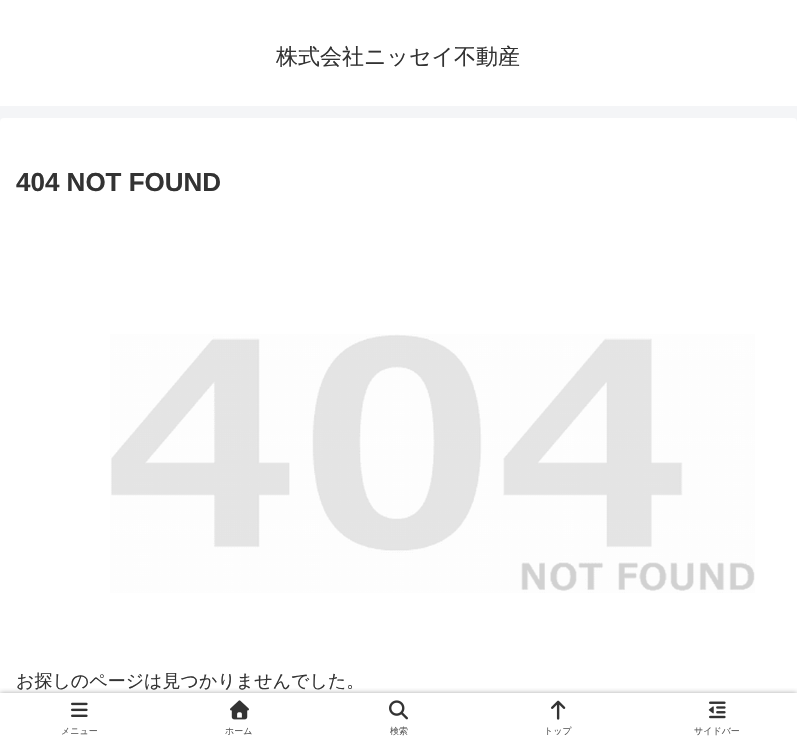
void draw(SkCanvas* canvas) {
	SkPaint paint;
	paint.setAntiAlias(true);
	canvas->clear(0xfff4f5f7);
	paint.setColor(0xffffffff);
	canvas->drawRect(SkRect::MakeXYWH(0, 0, 797, 106), paint);
	SkFont f1(fontMgr->matchFamilyStyle("WenQuanYi Zen Hei", SkFontStyle(500, SkFontStyle::kNormal_Width, SkFontStyle::kUpright_Slant)), 22);
	f1.setSubpixel(true);
	paint.setColor(0xff333333);
	canvas->drawString("株式会社ニッセイ不動産", 276, 64, f1, paint);
	paint.setColor(0xffffffff);
	canvas->drawRoundRect(SkRect::MakeXYWH(0, 118, 797, 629), 4, 4, paint);
	SkFont f2(fontMgr->matchFamilyStyle("Liberation Sans", SkFontStyle::Bold()), 26);
	f2.setSubpixel(true);
	paint.setColor(0xff333333);
	canvas->drawString("404 NOT FOUND", 16, 191, f2, paint);
	canvas->drawImageRect(SkImages::DeferredFromEncodedData(SkData::MakeFromFileName("img1.png")), SkRect::MakeXYWH(110, 334, 645, 259), SkSamplingOptions());
	SkFont f3(fontMgr->matchFamilyStyle("WenQuanYi Zen Hei", SkFontStyle(500, SkFontStyle::kNormal_Width, SkFontStyle::kUpright_Slant)), 18);
	f3.setSubpixel(true);
	canvas->drawString("お探しのページは見つかりませんでした。", 16, 687, f3, paint);
	canvas->save();
	canvas->clipRect(SkRect::MakeXYWH(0, 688, 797, 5));
	paint.setColor(0xffa9a9a9);
	paint.setMaskFilter(SkMaskFilter::MakeBlur(kNormal_SkBlurStyle, 2.5));
	canvas->drawRect(SkRect::MakeXYWH(0, 693, 797, 50), paint);
	paint.setMaskFilter(nullptr);
	canvas->restore();
	canvas->drawImageRect(SkImages::DeferredFromEncodedData(SkData::MakeFromFileName("img2.png")), SkRect::MakeXYWH(71, 702, 17, 15), SkSamplingOptions());
	SkFont f4(fontMgr->matchFamilyStyle("WenQuanYi Zen Hei", SkFontStyle(500, SkFontStyle::kNormal_Width, SkFontStyle::kUpright_Slant)), 9);
	f4.setSubpixel(true);
	paint.setColor(0xff5c5c5c);
	canvas->drawString("メニュー", 61, 734, f4, paint);
	canvas->drawImageRect(SkImages::DeferredFromEncodedData(SkData::MakeFromFileName("img3.png")), SkRect::MakeXYWH(230, 700, 19, 20), SkSamplingOptions());
	canvas->drawString("ホーム", 225, 734, f4, paint);
	canvas->drawImageRect(SkImages::DeferredFromEncodedData(SkData::MakeFromFileName("img4.png")), SkRect::MakeXYWH(389, 700, 19, 20), SkSamplingOptions());
	canvas->drawString("検索", 390, 734, f4, paint);
	canvas->drawImageRect(SkImages::DeferredFromEncodedData(SkData::MakeFromFileName("img5.png")), SkRect::MakeXYWH(551, 700, 15, 20), SkSamplingOptions());
	canvas->drawString("トップ", 544, 734, f4, paint);
	canvas->drawImageRect(SkImages::DeferredFromEncodedData(SkData::MakeFromFileName("img6.png")), SkRect::MakeXYWH(708, 701, 18, 18), SkSamplingOptions());
	canvas->drawString("サイドバー", 694, 734, f4, paint);
}
